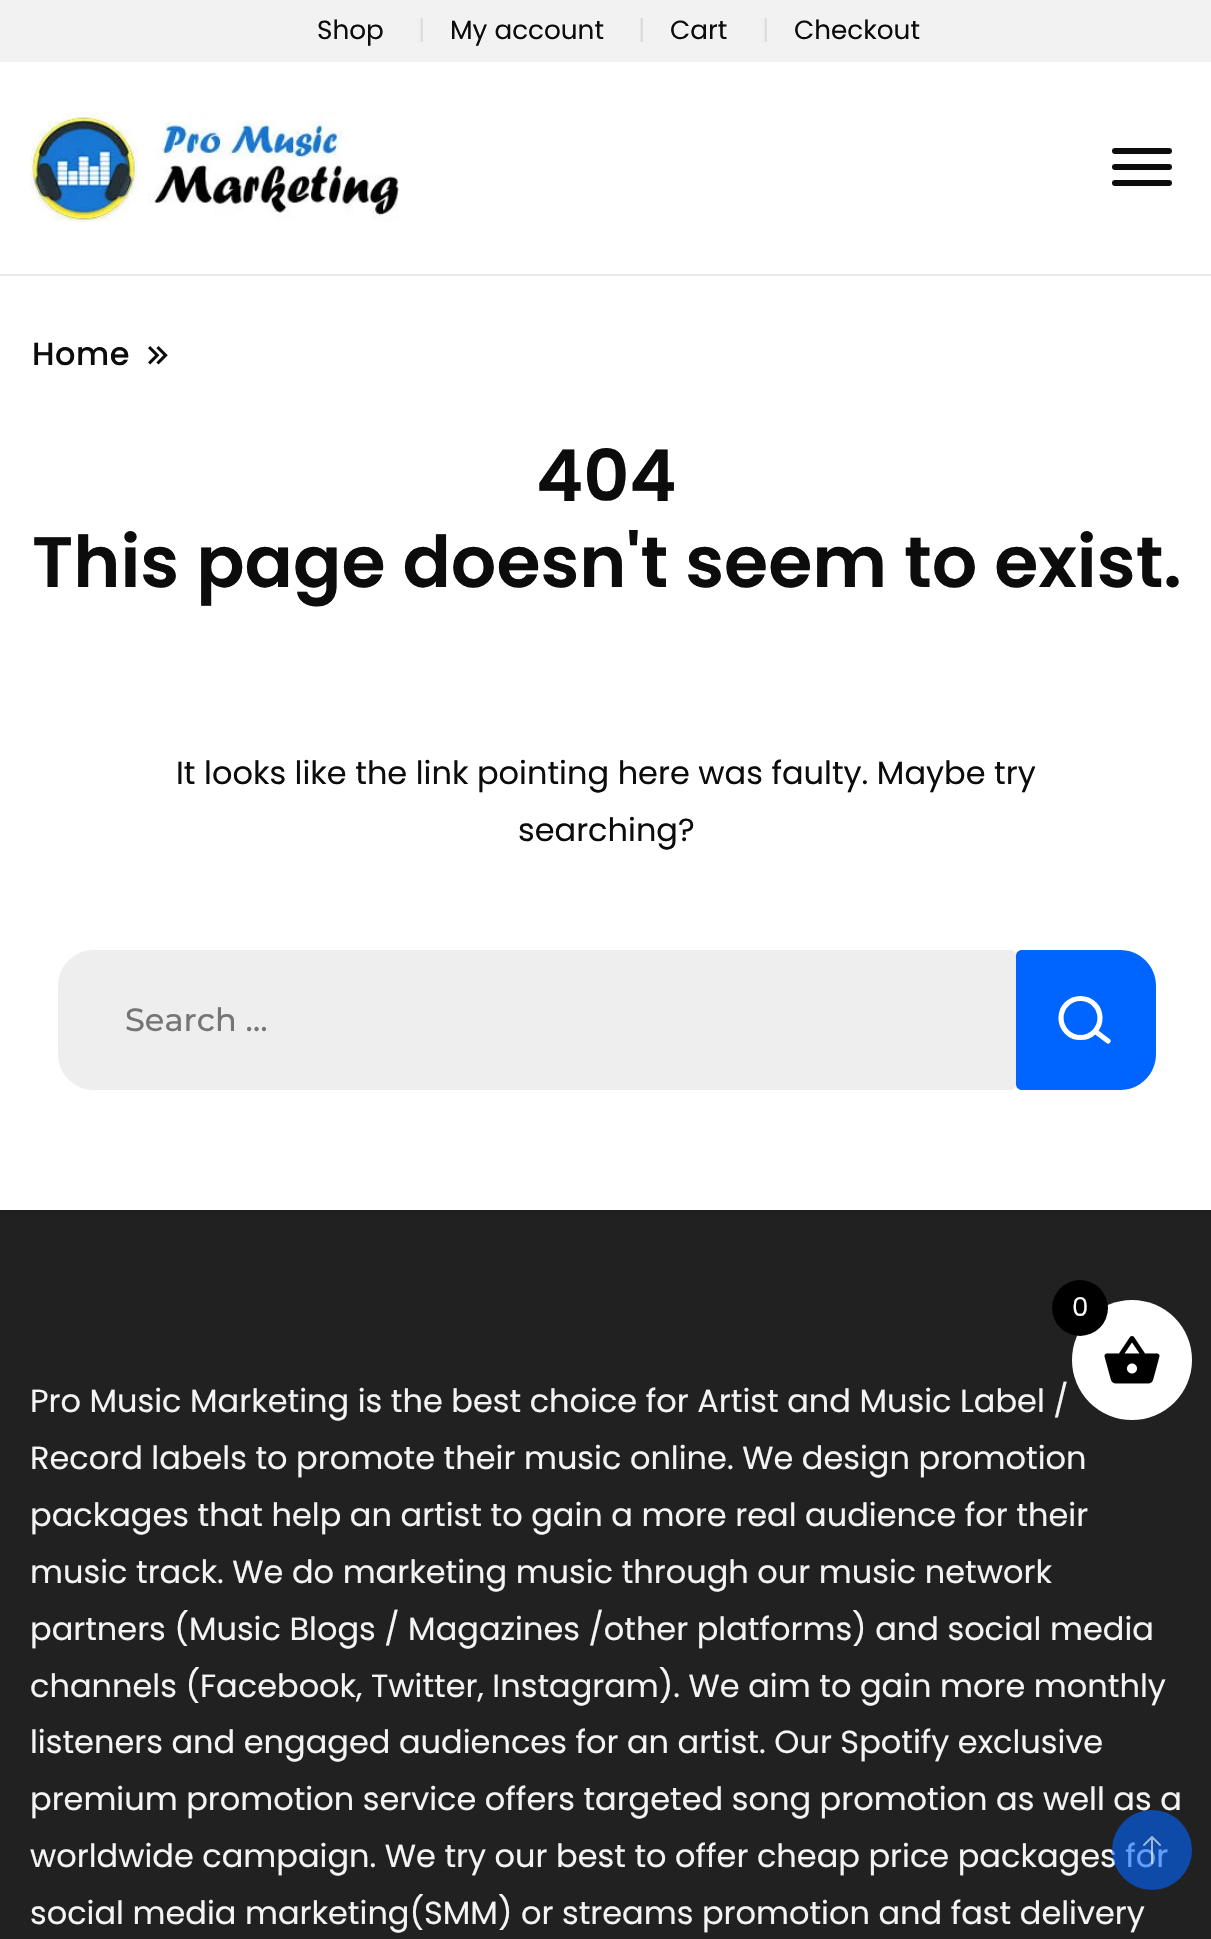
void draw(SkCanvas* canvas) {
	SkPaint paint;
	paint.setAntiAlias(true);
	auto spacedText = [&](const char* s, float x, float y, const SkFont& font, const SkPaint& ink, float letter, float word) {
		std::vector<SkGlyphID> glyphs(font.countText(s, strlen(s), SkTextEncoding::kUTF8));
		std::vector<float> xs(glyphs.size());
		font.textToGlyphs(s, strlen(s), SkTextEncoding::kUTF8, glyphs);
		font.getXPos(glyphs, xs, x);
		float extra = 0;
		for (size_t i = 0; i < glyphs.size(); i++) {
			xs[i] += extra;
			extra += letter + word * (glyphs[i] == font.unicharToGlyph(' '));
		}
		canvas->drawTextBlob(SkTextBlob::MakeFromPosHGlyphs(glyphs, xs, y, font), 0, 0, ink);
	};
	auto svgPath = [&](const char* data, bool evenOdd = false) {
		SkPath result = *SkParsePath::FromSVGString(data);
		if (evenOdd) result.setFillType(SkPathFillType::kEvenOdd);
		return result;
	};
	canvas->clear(0xffffffff);
	paint.setColor(0xffe8e9e9);
	canvas->drawRect(SkRect::MakeXYWH(0, 274, 1211, 2), paint);
	paint.setColor(0xfff2f2f2);
	canvas->drawRect(SkRect::MakeXYWH(0, 0, 1211, 62), paint);
	SkFont f1(fontMgr->matchFamilyStyle("Poppins", SkFontStyle::Normal()), 26.25);
	f1.setSubpixel(true);
	paint.setColor(0xff0c0c0c);
	canvas->drawString("Shop", 317, 39, f1, paint);
	paint.setColor(0xffdddddd);
	canvas->drawString("|", 418, 39, f1, paint);
	paint.setColor(0xff0c0c0c);
	canvas->drawString("My account", 450, 39, f1, paint);
	paint.setColor(0xffdddddd);
	canvas->drawString("|", 638, 39, f1, paint);
	paint.setColor(0xff0c0c0c);
	canvas->drawString("Cart", 670, 39, f1, paint);
	paint.setColor(0xffdddddd);
	canvas->drawString("|", 762, 39, f1, paint);
	paint.setColor(0xff0c0c0c);
	canvas->drawString("Checkout", 794, 39, f1, paint);
	canvas->drawImageRect(SkImages::DeferredFromEncodedData(SkData::MakeFromFileName("img1.png")), SkRect::MakeXYWH(30, 112, 369, 110), SkSamplingOptions());
	canvas->drawRoundRect(SkRect::MakeXYWH(1112, 148, 60, 6), 3, 3, paint);
	canvas->drawRoundRect(SkRect::MakeXYWH(1112, 164, 60, 6), 3, 3, paint);
	canvas->drawRoundRect(SkRect::MakeXYWH(1112, 180, 60, 6), 3, 3, paint);
	SkFont f2(fontMgr->matchFamilyStyle("Poppins", SkFontStyle(500, SkFontStyle::kNormal_Width, SkFontStyle::kUpright_Slant)), 32);
	f2.setSubpixel(true);
	spacedText("Home", 32, 365, f2, paint, 0.5, 0);
	canvas->drawImageRect(SkImages::DeferredFromEncodedData(SkData::MakeFromFileName("img2.png")), SkRect::MakeXYWH(148, 346, 20, 19), SkSamplingOptions());
	SkFont f3(fontMgr->matchFamilyStyle("Poppins", SkFontStyle(600, SkFontStyle::kNormal_Width, SkFontStyle::kUpright_Slant)), 71.4);
	f3.setSubpixel(true);
	canvas->drawString("404", 536, 501, f3, paint);
	canvas->drawString("This page doesn't seem to exist.", 32, 587, f3, paint);
	SkFont f4(fontMgr->matchFamilyStyle("Poppins", SkFontStyle::Normal()), 32);
	f4.setSubpixel(true);
	canvas->drawString("It looks like the link pointing here was faulty. Maybe try", 176, 784, f4, paint);
	canvas->drawString("searching?", 518, 841, f4, paint);
	paint.setColor(0xffeeeeee);
	canvas->drawPath(svgPath("M94 950H1010C1013.5 950 1016 952.5 1016 956V1084C1016 1087.5 1013.5 1090 1010 1090H94C74 1090 58 1074 58 1054V986C58 966 74 950 94 950Z"), paint);
	SkFont f5(fontMgr->matchFamilyStyle("Montserrat", SkFontStyle(500, SkFontStyle::kNormal_Width, SkFontStyle::kUpright_Slant)), 32);
	f5.setSubpixel(true);
	paint.setColor(0xff757575);
	canvas->drawString("Search …", 125, 1031, f5, paint);
	paint.setColor(0xff0064ff);
	canvas->drawPath(svgPath("M1022 950H1120C1140 950 1156 966 1156 986V1054C1156 1074 1140 1090 1120 1090H1022C1018.5 1090 1016 1087.5 1016 1084V956C1016 952.5 1018.5 950 1022 950Z"), paint);
	paint.setStroke(true);
	paint.setStrokeWidth(5.2);
	paint.setColor(0xffffffff);
	canvas->drawCircle(1080.5, 1018, 19.5, paint);
	paint.setStrokeCap(SkPaint::kRound_Cap);
	paint.setStrokeJoin(SkPaint::kRound_Join);
	canvas->drawPath(svgPath("M1095.5 1031.5L1108 1041"), paint);
	paint.setStroke(false);
	paint.setColor(0xff212121);
	canvas->drawRect(SkRect::MakeXYWH(0, 1210, 1211, 729), paint);
	paint.setColor(0xfff4f4f4);
	canvas->drawString("Pro Music Marketing is the best choice for Artist and Music Label /", 30, 1412, f4, paint);
	canvas->drawString("Record labels to promote their music online. We design promotion", 30, 1469, f4, paint);
	canvas->drawString("packages that help an artist to gain a more real audience for their", 30, 1526, f4, paint);
	canvas->drawString("music track. We do marketing music through our music network", 30, 1583, f4, paint);
	canvas->drawString("partners (Music Blogs / Magazines /other platforms) and social media", 30, 1640, f4, paint);
	canvas->drawString("channels (Facebook, Twitter, Instagram). We aim to gain more monthly", 30, 1697, f4, paint);
	canvas->drawString("listeners and engaged audiences for an artist. Our Spotify exclusive", 30, 1753, f4, paint);
	canvas->drawString("premium promotion service offers targeted song promotion as well as a", 30, 1810, f4, paint);
	canvas->drawString("worldwide campaign. We try our best to offer cheap price packages for", 30, 1867, f4, paint);
	canvas->drawString("social media marketing(SMM) or streams promotion and fast delivery", 30, 1924, f4, paint);
	paint.setColor(0xffffffff);
	canvas->drawCircle(1132, 1360, 60, paint);
	paint.setColor(0xff000000);
	canvas->drawCircle(1080, 1308, 28, paint);
	SkFont f6(fontMgr->matchFamilyStyle("Poppins", SkFontStyle::Normal()), 26);
	f6.setSubpixel(true);
	paint.setColor(0xffffffff);
	canvas->drawString("0", 1072, 1316, f6, paint);
	canvas->drawImageRect(SkImages::DeferredFromEncodedData(SkData::MakeFromFileName("img3.png")), SkRect::MakeXYWH(1104, 1336, 56, 48), SkSamplingOptions());
	paint.setColor(0x990064ff);
	canvas->drawCircle(1152, 1850, 40, paint);
	canvas->drawImageRect(SkImages::DeferredFromEncodedData(SkData::MakeFromFileName("img4.png")), SkRect::MakeXYWH(1143, 1836, 18, 28), SkSamplingOptions());
}
